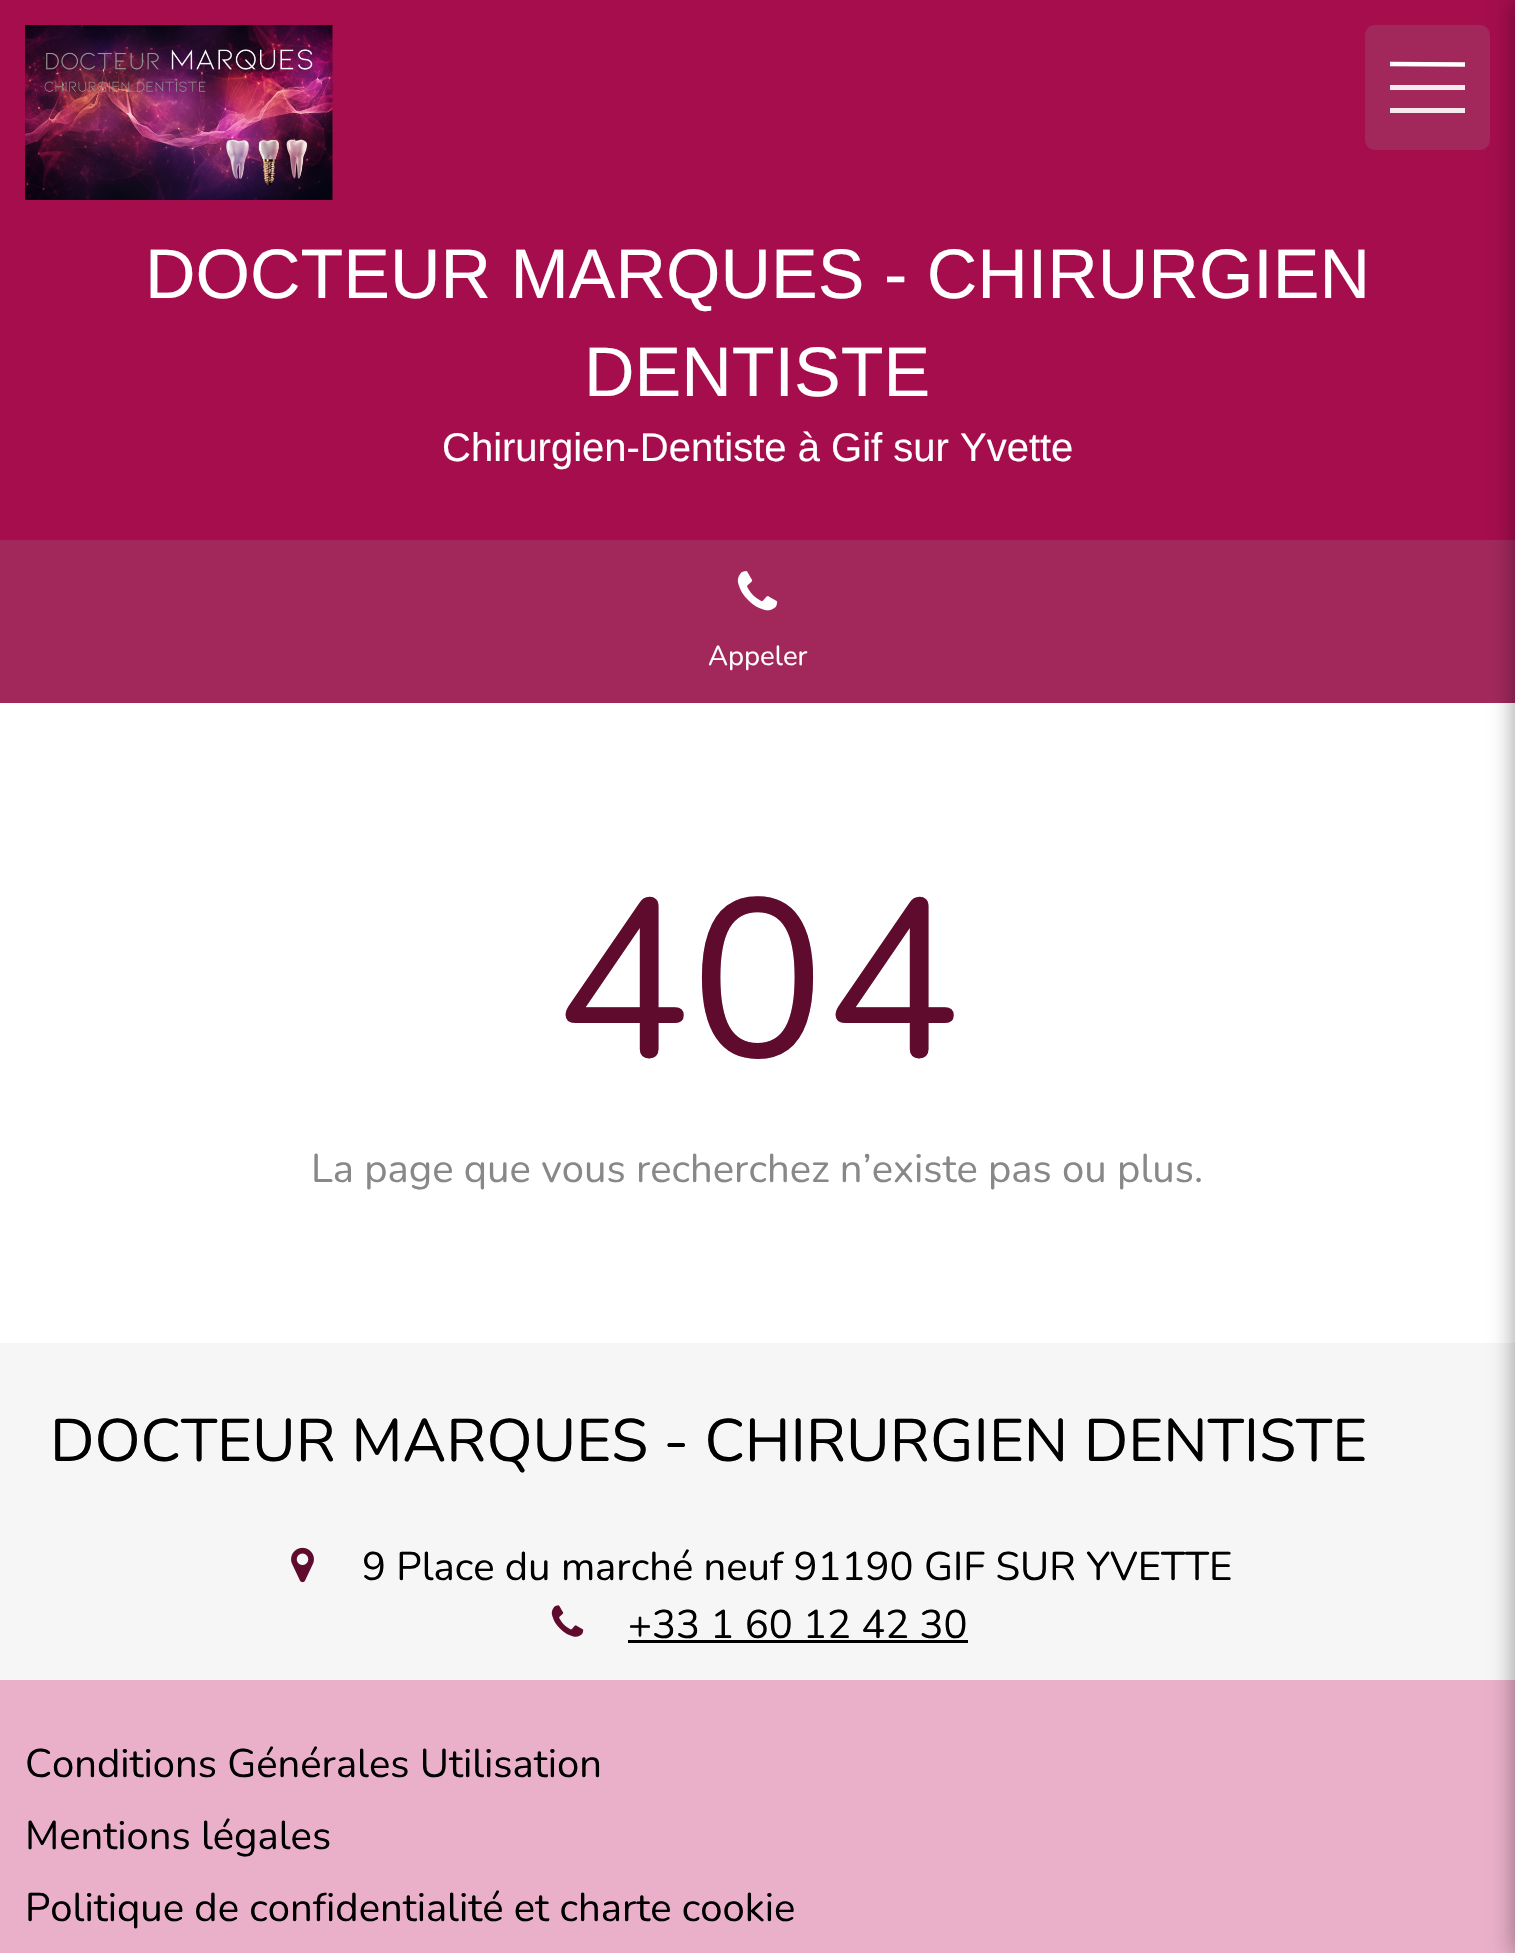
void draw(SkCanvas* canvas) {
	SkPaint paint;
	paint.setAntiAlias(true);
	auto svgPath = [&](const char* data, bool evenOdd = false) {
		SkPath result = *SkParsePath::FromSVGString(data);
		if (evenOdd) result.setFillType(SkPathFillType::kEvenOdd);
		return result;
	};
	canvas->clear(0xffffffff);
	paint.setColor(0xffa50d4d);
	canvas->drawRect(SkRect::MakeXYWH(0, 0, 1515, 540), paint);
	canvas->drawImageRect(SkImages::DeferredFromEncodedData(SkData::MakeFromFileName("img1.png")), SkRect::MakeXYWH(25, 25, 308, 175), SkSamplingOptions());
	paint.setColor(0xffa2285c);
	canvas->drawRoundRect(SkRect::MakeXYWH(1365, 25, 125, 125), 10, 10, paint);
	paint.setStroke(true);
	paint.setStrokeWidth(4.5);
	paint.setColor(0xffffffff);
	canvas->drawPath(svgPath("M1390 64L1465 64.5"), paint);
	paint.setStroke(false);
	paint.setColor(0xfff6eaef);
	canvas->drawRect(SkRect::MakeXYWH(1390, 85, 75, 5), paint);
	canvas->drawRect(SkRect::MakeXYWH(1390, 108, 75, 5), paint);
	SkFont f1(fontMgr->matchFamilyStyle("Liberation Sans", SkFontStyle::Normal()), 70);
	f1.setSubpixel(true);
	paint.setColor(0xffffffff);
	canvas->drawString("DOCTEUR MARQUES - CHIRURGIEN", 145, 298, f1, paint);
	canvas->drawString("DENTISTE", 584, 396, f1, paint);
	SkFont f2(fontMgr->matchFamilyStyle("Liberation Sans", SkFontStyle::Normal()), 40);
	f2.setSubpixel(true);
	canvas->drawString("Chirurgien-Dentiste à Gif sur Yvette", 442, 461, f2, paint);
	paint.setColor(0xffa2285c);
	canvas->drawRect(SkRect::MakeXYWH(0, 540, 1515, 163), paint);
	canvas->drawImageRect(SkImages::DeferredFromEncodedData(SkData::MakeFromFileName("img2.png")), SkRect::MakeXYWH(737, 571, 41, 40), SkSamplingOptions());
	SkFont f3(fontMgr->matchFamilyStyle("Nunito", SkFontStyle::Normal()), 27.5);
	f3.setSubpixel(true);
	paint.setColor(0xffffffff);
	canvas->drawString("Appeler", 708, 665, f3, paint);
	SkFont f4(fontMgr->matchFamilyStyle("Nunito", SkFontStyle::Normal()), 225);
	f4.setSubpixel(true);
	paint.setColor(0xff5e0b2e);
	canvas->drawString("404", 555, 1057, f4, paint);
	SkFont f5(fontMgr->matchFamilyStyle("Nunito", SkFontStyle::Normal()), 40);
	f5.setSubpixel(true);
	paint.setColor(0xff888888);
	canvas->drawString("La page que vous recherchez n’existe pas ou plus.", 311, 1182, f5, paint);
	paint.setColor(0xfff6f6f6);
	canvas->drawRect(SkRect::MakeXYWH(0, 1343, 1515, 337), paint);
	SkFont f6(fontMgr->matchFamilyStyle("Nunito", SkFontStyle::Normal()), 60);
	f6.setSubpixel(true);
	paint.setColor(0xff000000);
	canvas->drawString("DOCTEUR MARQUES - CHIRURGIEN DENTISTE", 50, 1461, f6, paint);
	canvas->drawImageRect(SkImages::DeferredFromEncodedData(SkData::MakeFromFileName("img3.png")), SkRect::MakeXYWH(291, 1547, 23, 36), SkSamplingOptions());
	canvas->drawString("9 Place du marché neuf 91190 GIF SUR YVETTE", 362, 1580, f5, paint);
	canvas->drawImageRect(SkImages::DeferredFromEncodedData(SkData::MakeFromFileName("img4.png")), SkRect::MakeXYWH(551, 1605, 33, 32), SkSamplingOptions());
	canvas->drawString("+33 1 60 12 42 30", 628, 1638, f5, paint);
	canvas->drawRect(SkRect::MakeXYWH(628, 1640, 340, 3), paint);
	paint.setColor(0xffeab0c9);
	canvas->drawRect(SkRect::MakeXYWH(0, 1680, 1515, 273), paint);
	paint.setColor(0xff000000);
	canvas->drawString("Conditions Générales Utilisation", 25, 1777, f5, paint);
	canvas->drawString("Mentions légales", 25, 1849, f5, paint);
	canvas->drawString("Politique de confidentialité et charte cookie", 25, 1921, f5, paint);
	paint.setColor(0x66000000);
	paint.setMaskFilter(SkMaskFilter::MakeBlur(kNormal_SkBlurStyle, 12.5));
	canvas->drawRect(SkRect::MakeXYWH(1515, 0, 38, 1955), paint);
	paint.setMaskFilter(nullptr);
}
